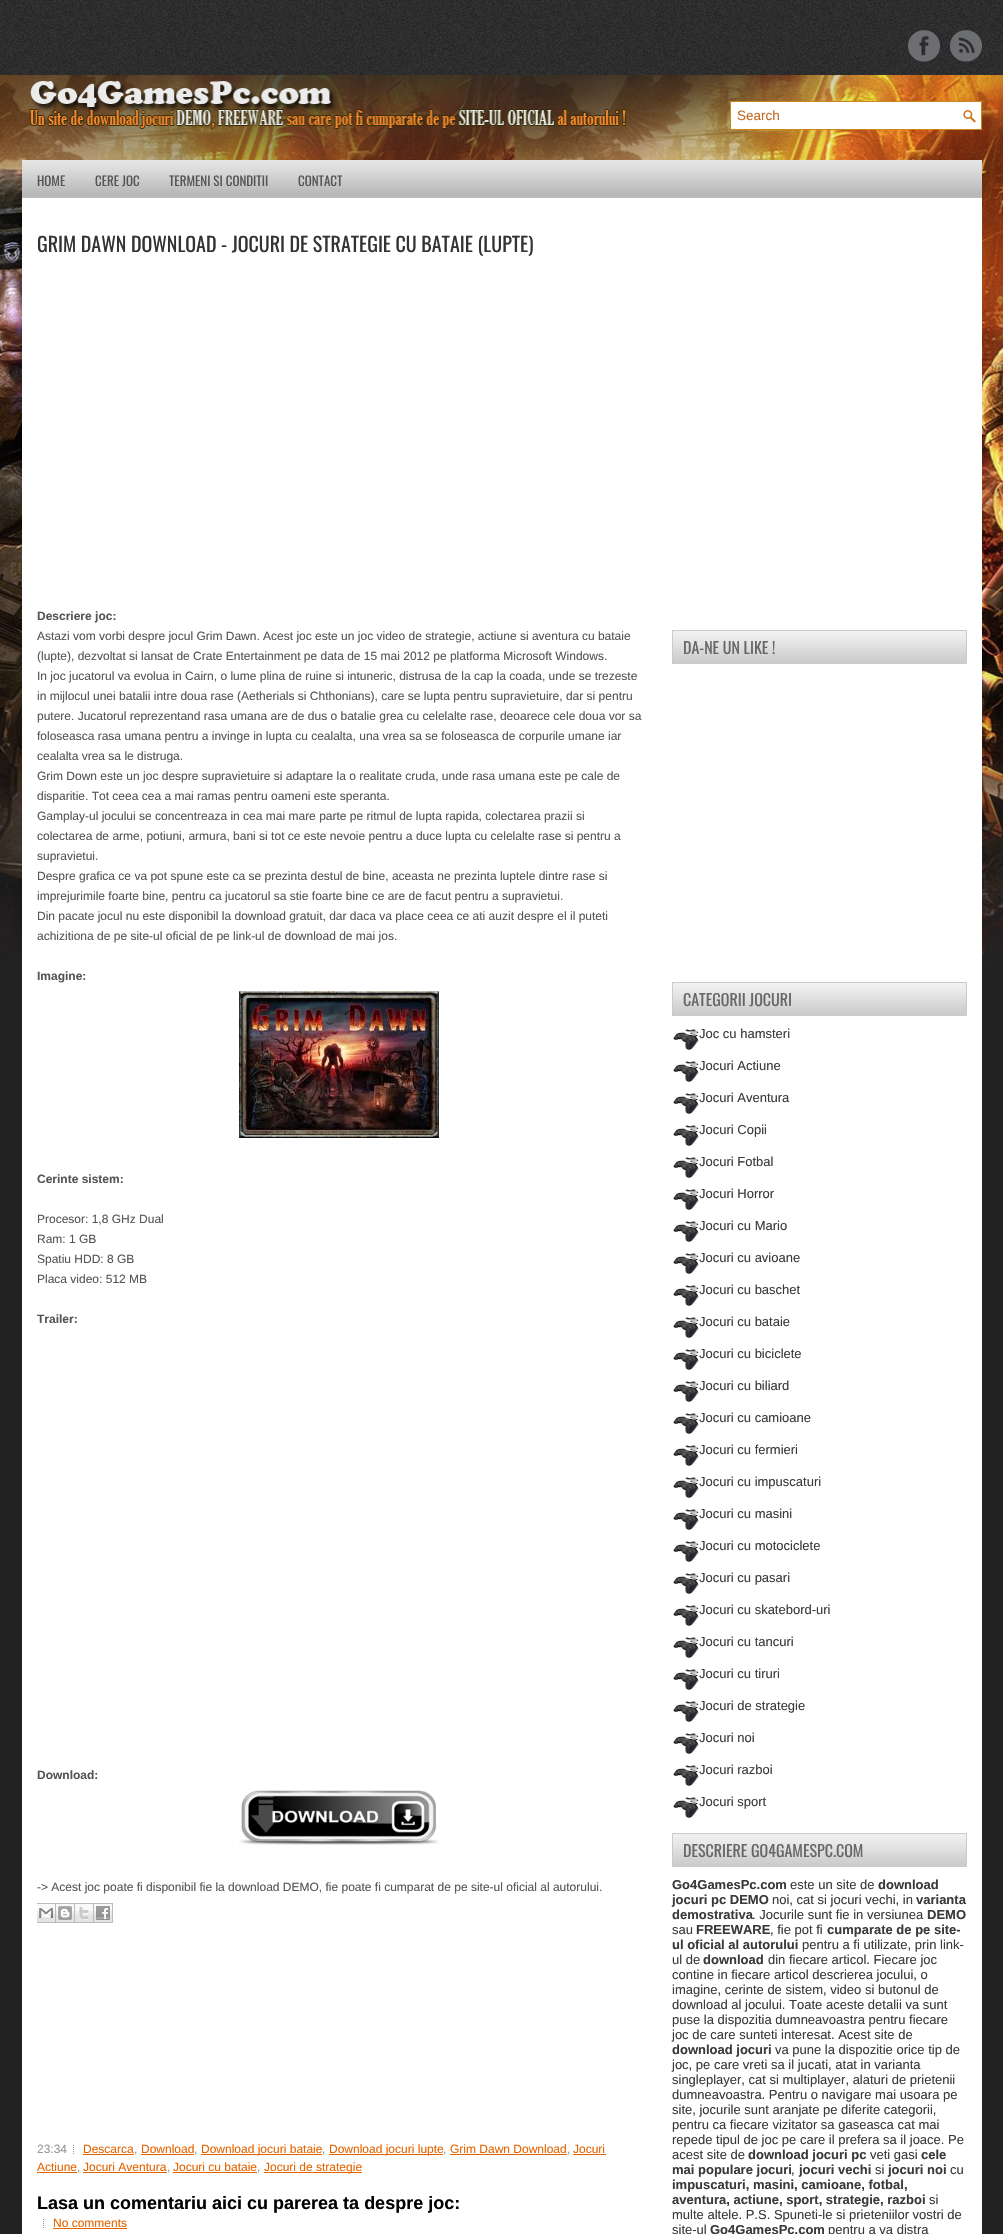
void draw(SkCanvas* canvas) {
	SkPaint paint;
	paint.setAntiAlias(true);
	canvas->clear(0xff222222);
	canvas->drawImageRect(SkImages::DeferredFromEncodedData(SkData::MakeFromFileName("img1.png")), SkRect::MakeXYWH(0, 0, 1003, 75), SkSamplingOptions());
	canvas->drawImageRect(SkImages::DeferredFromEncodedData(SkData::MakeFromFileName("img2.png")), SkRect::MakeXYWH(0, 75, 1003, 976), SkSamplingOptions());
	canvas->drawImageRect(SkImages::DeferredFromEncodedData(SkData::MakeFromFileName("img3.png")), SkRect::MakeXYWH(908, 30, 32, 32), SkSamplingOptions());
	canvas->drawImageRect(SkImages::DeferredFromEncodedData(SkData::MakeFromFileName("img4.png")), SkRect::MakeXYWH(950, 30, 32, 32), SkSamplingOptions());
	canvas->drawImageRect(SkImages::DeferredFromEncodedData(SkData::MakeFromFileName("img5.png")), SkRect::MakeXYWH(29, 81, 598, 48), SkSamplingOptions());
	paint.setColor(0xffffffff);
	canvas->drawRect(SkRect::MakeXYWH(731, 102, 250, 27), paint);
	canvas->drawImageRect(SkImages::DeferredFromEncodedData(SkData::MakeFromFileName("img6.png")), SkRect::MakeXYWH(963, 110, 13, 13), SkSamplingOptions());
	paint.setStroke(true);
	paint.setStrokeWidth(1);
	paint.setColor(0xffcb8521);
	canvas->drawRect(SkRect::MakeXYWH(730.5, 101.5, 251, 28), paint);
	SkFont f1(fontMgr->matchFamilyStyle("Liberation Sans", SkFontStyle::Normal()), 13.5);
	f1.setSubpixel(true);
	paint.setStroke(false);
	paint.setColor(0xffc46b21);
	canvas->drawString("Search", 737, 120, f1, paint);
	canvas->drawImageRect(SkImages::DeferredFromEncodedData(SkData::MakeFromFileName("img7.png")), SkRect::MakeXYWH(22, 160, 960, 38), SkSamplingOptions());
	SkFont f2(fontMgr->matchFamilyStyle("Oswald", SkFontStyle::Normal()), 13);
	f2.setSubpixel(true);
	paint.setColor(0xff555555);
	canvas->drawString("HOME", 37, 186, f2, paint);
	canvas->drawString("CERE JOC", 95, 186, f2, paint);
	canvas->drawString("TERMENI SI CONDITII", 169, 186, f2, paint);
	canvas->drawString("CONTACT", 298, 186, f2, paint);
	paint.setColor(0xffffffff);
	canvas->drawRect(SkRect::MakeXYWH(22, 198, 960, 2036), paint);
	SkFont f3(fontMgr->matchFamilyStyle("Oswald", SkFontStyle::Normal()), 20);
	f3.setSubpixel(true);
	paint.setColor(0xff333333);
	canvas->drawString("GRIM DAWN DOWNLOAD - JOCURI DE STRATEGIE CU BATAIE (LUPTE)", 37, 252, f3, paint);
	SkFont f4(fontMgr->matchFamilyStyle("Liberation Sans", SkFontStyle::Bold()), 12);
	f4.setSubpixel(true);
	paint.setColor(0xff555555);
	canvas->drawString("Descriere joc:", 37, 620, f4, paint);
	SkFont f5(fontMgr->matchFamilyStyle("Liberation Sans", SkFontStyle::Normal()), 12);
	f5.setSubpixel(true);
	canvas->drawString("Astazi vom vorbi despre jocul Grim Dawn. Acest joc este un joc video de strategie, actiune si aventura cu bataie", 37, 640, f5, paint);
	canvas->drawString("(lupte), dezvoltat si lansat de Crate Entertainment pe data de 15 mai 2012 pe platforma Microsoft Windows.", 37, 660, f5, paint);
	canvas->drawString("In joc jucatorul va evolua in Cairn, o lume plina de ruine si intuneric, distrusa de la cap la coada, unde se trezeste", 37, 680, f5, paint);
	canvas->drawString("in mijlocul unei batalii intre doua rase (Aetherials si Chthonians), care se lupta pentru supravietuire, dar si pentru", 37, 700, f5, paint);
	canvas->drawString("putere. Jucatorul reprezentand rasa umana are de dus o batalie grea cu celelalte rase, deoarece cele doua vor sa", 37, 720, f5, paint);
	canvas->drawString("foloseasca rasa umana pentru a invinge in lupta cu cealalta, una vrea sa se foloseasca de corpurile umane iar", 37, 740, f5, paint);
	canvas->drawString("cealalta vrea sa le distruga.", 37, 760, f5, paint);
	canvas->drawString("Grim Down este un joc despre supravietuire si adaptare la o realitate cruda, unde rasa umana este pe cale de", 37, 780, f5, paint);
	canvas->drawString("disparitie. Tot ceea cea a mai ramas pentru oameni este speranta.", 37, 800, f5, paint);
	canvas->drawString("Gamplay-ul jocului se concentreaza in cea mai mare parte pe ritmul de lupta rapida, colectarea prazii si", 37, 820, f5, paint);
	canvas->drawString("colectarea de arme, potiuni, armura, bani si tot ce este nevoie pentru a duce lupta cu celelalte rase si pentru a", 37, 840, f5, paint);
	canvas->drawString("supravietui.", 37, 860, f5, paint);
	canvas->drawString("Despre grafica ce va pot spune este ca se prezinta destul de bine, aceasta ne prezinta luptele dintre rase si", 37, 880, f5, paint);
	canvas->drawString("imprejurimile foarte bine, pentru ca jucatorul sa stie foarte bine ce are de facut pentru a supravietui.", 37, 900, f5, paint);
	canvas->drawString("Din pacate jocul nu este disponibil la download gratuit, dar daca va place ceea ce ati auzit despre el il puteti", 37, 920, f5, paint);
	canvas->drawString("achizitiona de pe site-ul oficial de pe link-ul de download de mai jos.", 37, 940, f5, paint);
	canvas->drawString("Imagine:", 37, 980, f4, paint);
	canvas->drawImageRect(SkImages::DeferredFromEncodedData(SkData::MakeFromFileName("img8.png")), SkRect::MakeXYWH(239, 991, 200, 147), SkSamplingOptions());
	canvas->drawString("Cerinte sistem:", 37, 1183, f4, paint);
	canvas->drawString("Procesor: 1,8 GHz Dual", 37, 1223, f5, paint);
	canvas->drawString("Ram: 1 GB", 37, 1243, f5, paint);
	canvas->drawString("Spatiu HDD: 8 GB", 37, 1263, f5, paint);
	canvas->drawString("Placa video: 512 MB", 37, 1283, f5, paint);
	canvas->drawString("Trailer:", 37, 1323, f4, paint);
	canvas->drawString("Download:", 37, 1779, f4, paint);
	canvas->drawImageRect(SkImages::DeferredFromEncodedData(SkData::MakeFromFileName("img9.png")), SkRect::MakeXYWH(239, 1790, 200, 55), SkSamplingOptions());
	canvas->drawString("-> Acest joc poate fi disponibil fie la download DEMO, fie poate fi cumparat de pe site-ul oficial al autorului.", 37, 1891, f5, paint);
	canvas->drawImageRect(SkImages::DeferredFromEncodedData(SkData::MakeFromFileName("img10.png")), SkRect::MakeXYWH(37, 1903, 19, 20), SkSamplingOptions());
	canvas->drawImageRect(SkImages::DeferredFromEncodedData(SkData::MakeFromFileName("img11.png")), SkRect::MakeXYWH(56, 1903, 19, 20), SkSamplingOptions());
	canvas->drawImageRect(SkImages::DeferredFromEncodedData(SkData::MakeFromFileName("img12.png")), SkRect::MakeXYWH(75, 1903, 19, 20), SkSamplingOptions());
	canvas->drawImageRect(SkImages::DeferredFromEncodedData(SkData::MakeFromFileName("img13.png")), SkRect::MakeXYWH(94, 1903, 19, 20), SkSamplingOptions());
	paint.setColor(0xff999999);
	canvas->drawString("23:34", 37, 2153, f5, paint);
	canvas->drawImageRect(SkImages::DeferredFromEncodedData(SkData::MakeFromFileName("img14.png")), SkRect::MakeXYWH(73, 2145, 1, 9), SkSamplingOptions());
	paint.setColor(0xffe56400);
	canvas->drawString("Descarca", 83, 2153, f5, paint);
	paint.setColor(0xff999999);
	canvas->drawString(",", 134, 2153, f5, paint);
	paint.setColor(0xffe56400);
	canvas->drawRect(SkRect::MakeXYWH(83, 2154, 51, 1), paint);
	canvas->drawString("Download", 141, 2153, f5, paint);
	paint.setColor(0xff999999);
	canvas->drawString(",", 194, 2153, f5, paint);
	paint.setColor(0xffe56400);
	canvas->drawRect(SkRect::MakeXYWH(141, 2154, 53, 1), paint);
	canvas->drawRect(SkRect::MakeXYWH(201, 2154, 121, 1), paint);
	canvas->drawString("Download jocuri bataie", 201, 2153, f5, paint);
	paint.setColor(0xff999999);
	canvas->drawString(",", 322, 2153, f5, paint);
	paint.setColor(0xffe56400);
	canvas->drawRect(SkRect::MakeXYWH(329, 2154, 114, 1), paint);
	canvas->drawString("Download jocuri lupte", 329, 2153, f5, paint);
	paint.setColor(0xff999999);
	canvas->drawString(",", 443, 2153, f5, paint);
	paint.setColor(0xffe56400);
	canvas->drawString("Grim Dawn Download", 450, 2153, f5, paint);
	paint.setColor(0xff999999);
	canvas->drawString(",", 567, 2153, f5, paint);
	paint.setColor(0xffe56400);
	canvas->drawRect(SkRect::MakeXYWH(450, 2154, 117, 1), paint);
	canvas->drawRect(SkRect::MakeXYWH(573, 2154, 33, 1), paint);
	canvas->drawString("Jocuri", 573, 2153, f5, paint);
	canvas->drawString("Actiune", 37, 2171, f5, paint);
	paint.setColor(0xff999999);
	canvas->drawString(",", 77, 2171, f5, paint);
	paint.setColor(0xffe56400);
	canvas->drawRect(SkRect::MakeXYWH(37, 2172, 40, 1), paint);
	canvas->drawString("Jocuri Aventura", 83, 2171, f5, paint);
	paint.setColor(0xff999999);
	canvas->drawString(",", 167, 2171, f5, paint);
	paint.setColor(0xffe56400);
	canvas->drawRect(SkRect::MakeXYWH(83, 2172, 84, 1), paint);
	canvas->drawString("Jocuri cu bataie", 173, 2171, f5, paint);
	paint.setColor(0xff999999);
	canvas->drawString(",", 257, 2171, f5, paint);
	paint.setColor(0xffe56400);
	canvas->drawRect(SkRect::MakeXYWH(173, 2172, 84, 1), paint);
	canvas->drawRect(SkRect::MakeXYWH(264, 2172, 98, 1), paint);
	canvas->drawString("Jocuri de strategie", 264, 2171, f5, paint);
	SkFont f6(fontMgr->matchFamilyStyle("Liberation Sans", SkFontStyle::Bold()), 18);
	f6.setSubpixel(true);
	paint.setColor(0xff000000);
	canvas->drawString("Lasa un comentariu aici cu parerea ta despre joc:", 37, 2209, f6, paint);
	canvas->drawImageRect(SkImages::DeferredFromEncodedData(SkData::MakeFromFileName("img14.png")), SkRect::MakeXYWH(43, 2219, 1, 9), SkSamplingOptions());
	paint.setColor(0xffe56400);
	canvas->drawString("No comments", 53, 2227, f5, paint);
	canvas->drawRect(SkRect::MakeXYWH(53, 2228, 74, 1), paint);
	canvas->drawImageRect(SkImages::DeferredFromEncodedData(SkData::MakeFromFileName("img15.png")), SkRect::MakeXYWH(673, 631, 293, 32), SkSamplingOptions());
	paint.setStroke(true);
	paint.setColor(0xffcbcbcb);
	canvas->drawRect(SkRect::MakeXYWH(672.5, 630.5, 294, 33), paint);
	SkFont f7(fontMgr->matchFamilyStyle("Oswald", SkFontStyle::Normal()), 16);
	f7.setSubpixel(true);
	paint.setStroke(false);
	paint.setColor(0xff676767);
	canvas->drawString("DA-NE UN LIKE !", 683, 654, f7, paint);
	canvas->drawImageRect(SkImages::DeferredFromEncodedData(SkData::MakeFromFileName("img15.png")), SkRect::MakeXYWH(673, 983, 293, 32), SkSamplingOptions());
	paint.setStroke(true);
	paint.setColor(0xffcbcbcb);
	canvas->drawRect(SkRect::MakeXYWH(672.5, 982.5, 294, 33), paint);
	paint.setStroke(false);
	paint.setColor(0xff676767);
	canvas->drawString("CATEGORII JOCURI", 683, 1006, f7, paint);
	canvas->drawImageRect(SkImages::DeferredFromEncodedData(SkData::MakeFromFileName("img16.png")), SkRect::MakeXYWH(673, 1029, 26, 21), SkSamplingOptions());
	SkFont f8(fontMgr->matchFamilyStyle("Liberation Sans", SkFontStyle::Normal()), 13);
	f8.setSubpixel(true);
	paint.setColor(0xff3a3a3a);
	canvas->drawString("Joc cu hamsteri", 699, 1038, f8, paint);
	canvas->drawImageRect(SkImages::DeferredFromEncodedData(SkData::MakeFromFileName("img16.png")), SkRect::MakeXYWH(673, 1061, 26, 21), SkSamplingOptions());
	canvas->drawString("Jocuri Actiune", 699, 1070, f8, paint);
	canvas->drawImageRect(SkImages::DeferredFromEncodedData(SkData::MakeFromFileName("img16.png")), SkRect::MakeXYWH(673, 1093, 26, 21), SkSamplingOptions());
	canvas->drawString("Jocuri Aventura", 699, 1102, f8, paint);
	canvas->drawImageRect(SkImages::DeferredFromEncodedData(SkData::MakeFromFileName("img16.png")), SkRect::MakeXYWH(673, 1125, 26, 21), SkSamplingOptions());
	canvas->drawString("Jocuri Copii", 699, 1134, f8, paint);
	canvas->drawImageRect(SkImages::DeferredFromEncodedData(SkData::MakeFromFileName("img16.png")), SkRect::MakeXYWH(673, 1157, 26, 21), SkSamplingOptions());
	canvas->drawString("Jocuri Fotbal", 699, 1166, f8, paint);
	canvas->drawImageRect(SkImages::DeferredFromEncodedData(SkData::MakeFromFileName("img16.png")), SkRect::MakeXYWH(673, 1189, 26, 21), SkSamplingOptions());
	canvas->drawString("Jocuri Horror", 699, 1198, f8, paint);
	canvas->drawImageRect(SkImages::DeferredFromEncodedData(SkData::MakeFromFileName("img16.png")), SkRect::MakeXYWH(673, 1221, 26, 21), SkSamplingOptions());
	canvas->drawString("Jocuri cu Mario", 699, 1230, f8, paint);
	canvas->drawImageRect(SkImages::DeferredFromEncodedData(SkData::MakeFromFileName("img16.png")), SkRect::MakeXYWH(673, 1253, 26, 21), SkSamplingOptions());
	canvas->drawString("Jocuri cu avioane", 699, 1262, f8, paint);
	canvas->drawImageRect(SkImages::DeferredFromEncodedData(SkData::MakeFromFileName("img16.png")), SkRect::MakeXYWH(673, 1285, 26, 21), SkSamplingOptions());
	canvas->drawString("Jocuri cu baschet", 699, 1294, f8, paint);
	canvas->drawImageRect(SkImages::DeferredFromEncodedData(SkData::MakeFromFileName("img16.png")), SkRect::MakeXYWH(673, 1317, 26, 21), SkSamplingOptions());
	canvas->drawString("Jocuri cu bataie", 699, 1326, f8, paint);
	canvas->drawImageRect(SkImages::DeferredFromEncodedData(SkData::MakeFromFileName("img16.png")), SkRect::MakeXYWH(673, 1349, 26, 21), SkSamplingOptions());
	canvas->drawString("Jocuri cu biciclete", 699, 1358, f8, paint);
	canvas->drawImageRect(SkImages::DeferredFromEncodedData(SkData::MakeFromFileName("img16.png")), SkRect::MakeXYWH(673, 1381, 26, 21), SkSamplingOptions());
	canvas->drawString("Jocuri cu biliard", 699, 1390, f8, paint);
	canvas->drawImageRect(SkImages::DeferredFromEncodedData(SkData::MakeFromFileName("img16.png")), SkRect::MakeXYWH(673, 1413, 26, 21), SkSamplingOptions());
	canvas->drawString("Jocuri cu camioane", 699, 1422, f8, paint);
	canvas->drawImageRect(SkImages::DeferredFromEncodedData(SkData::MakeFromFileName("img16.png")), SkRect::MakeXYWH(673, 1445, 26, 21), SkSamplingOptions());
	canvas->drawString("Jocuri cu fermieri", 699, 1454, f8, paint);
	canvas->drawImageRect(SkImages::DeferredFromEncodedData(SkData::MakeFromFileName("img16.png")), SkRect::MakeXYWH(673, 1477, 26, 21), SkSamplingOptions());
	canvas->drawString("Jocuri cu impuscaturi", 699, 1486, f8, paint);
	canvas->drawImageRect(SkImages::DeferredFromEncodedData(SkData::MakeFromFileName("img16.png")), SkRect::MakeXYWH(673, 1509, 26, 21), SkSamplingOptions());
	canvas->drawString("Jocuri cu masini", 699, 1518, f8, paint);
	canvas->drawImageRect(SkImages::DeferredFromEncodedData(SkData::MakeFromFileName("img16.png")), SkRect::MakeXYWH(673, 1541, 26, 21), SkSamplingOptions());
	canvas->drawString("Jocuri cu motociclete", 699, 1550, f8, paint);
	canvas->drawImageRect(SkImages::DeferredFromEncodedData(SkData::MakeFromFileName("img16.png")), SkRect::MakeXYWH(673, 1573, 26, 21), SkSamplingOptions());
	canvas->drawString("Jocuri cu pasari", 699, 1582, f8, paint);
	canvas->drawImageRect(SkImages::DeferredFromEncodedData(SkData::MakeFromFileName("img16.png")), SkRect::MakeXYWH(673, 1605, 26, 21), SkSamplingOptions());
	canvas->drawString("Jocuri cu skatebord-uri", 699, 1614, f8, paint);
	canvas->drawImageRect(SkImages::DeferredFromEncodedData(SkData::MakeFromFileName("img16.png")), SkRect::MakeXYWH(673, 1637, 26, 21), SkSamplingOptions());
	canvas->drawString("Jocuri cu tancuri", 699, 1646, f8, paint);
	canvas->drawImageRect(SkImages::DeferredFromEncodedData(SkData::MakeFromFileName("img16.png")), SkRect::MakeXYWH(673, 1669, 26, 21), SkSamplingOptions());
	canvas->drawString("Jocuri cu tiruri", 699, 1678, f8, paint);
	canvas->drawImageRect(SkImages::DeferredFromEncodedData(SkData::MakeFromFileName("img16.png")), SkRect::MakeXYWH(673, 1701, 26, 21), SkSamplingOptions());
	canvas->drawString("Jocuri de strategie", 699, 1710, f8, paint);
	canvas->drawImageRect(SkImages::DeferredFromEncodedData(SkData::MakeFromFileName("img16.png")), SkRect::MakeXYWH(673, 1733, 26, 21), SkSamplingOptions());
	canvas->drawString("Jocuri noi", 699, 1742, f8, paint);
	canvas->drawImageRect(SkImages::DeferredFromEncodedData(SkData::MakeFromFileName("img16.png")), SkRect::MakeXYWH(673, 1765, 26, 21), SkSamplingOptions());
	canvas->drawString("Jocuri razboi", 699, 1774, f8, paint);
	canvas->drawImageRect(SkImages::DeferredFromEncodedData(SkData::MakeFromFileName("img16.png")), SkRect::MakeXYWH(673, 1797, 26, 21), SkSamplingOptions());
	canvas->drawString("Jocuri sport", 699, 1806, f8, paint);
	canvas->drawImageRect(SkImages::DeferredFromEncodedData(SkData::MakeFromFileName("img15.png")), SkRect::MakeXYWH(673, 1834, 293, 32), SkSamplingOptions());
	paint.setStroke(true);
	paint.setColor(0xffcbcbcb);
	canvas->drawRect(SkRect::MakeXYWH(672.5, 1833.5, 294, 33), paint);
	paint.setStroke(false);
	paint.setColor(0xff676767);
	canvas->drawString("DESCRIERE GO4GAMESPC.COM", 683, 1857, f7, paint);
	SkFont f9(fontMgr->matchFamilyStyle("Liberation Sans", SkFontStyle::Bold()), 13);
	f9.setSubpixel(true);
	paint.setColor(0xff3a3a3a);
	canvas->drawString("Go4GamesPc.com", 672, 1889, f9, paint);
	canvas->drawString("este un site de", 790, 1889, f8, paint);
	canvas->drawString("download", 878, 1889, f9, paint);
	canvas->drawString("jocuri pc DEMO", 672, 1904, f9, paint);
	canvas->drawString("noi, cat si jocuri vechi, in", 772, 1904, f8, paint);
	canvas->drawString("varianta", 916, 1904, f9, paint);
	canvas->drawString("demostrativa", 672, 1919, f9, paint);
	canvas->drawString(". Jocurile sunt fie in versiunea", 752, 1919, f8, paint);
	canvas->drawString("DEMO", 927, 1919, f9, paint);
	canvas->drawString("sau", 672, 1934, f8, paint);
	canvas->drawString("FREEWARE", 696, 1934, f9, paint);
	canvas->drawString(", fie pot fi", 770, 1934, f8, paint);
	canvas->drawString("cumparate de pe site-", 827, 1934, f9, paint);
	canvas->drawString("ul oficial al autorului", 672, 1949, f9, paint);
	canvas->drawString("pentru a fi utilizate, prin link-", 802, 1949, f8, paint);
	canvas->drawString("ul de", 672, 1964, f8, paint);
	canvas->drawString("download", 703, 1964, f9, paint);
	canvas->drawString("din fiecare articol. Fiecare joc", 768, 1964, f8, paint);
	canvas->drawString("contine in fiecare articol descrierea jocului, o", 672, 1979, f8, paint);
	canvas->drawString("imagine, cerinte de sistem, video si butonul de", 672, 1994, f8, paint);
	canvas->drawString("download al jocului. Toate aceste detalii va sunt", 672, 2009, f8, paint);
	canvas->drawString("puse la dispozitia dumneavoastra pentru fiecare", 672, 2024, f8, paint);
	canvas->drawString("joc de care sunteti interesat. Acest site de", 672, 2039, f8, paint);
	canvas->drawString("download jocuri", 672, 2054, f9, paint);
	canvas->drawString("va pune la dispozitie orice tip de", 775, 2054, f8, paint);
	canvas->drawString("joc, pe care vreti sa il jucati, atat in varianta", 672, 2069, f8, paint);
	canvas->drawString("singleplayer, cat si multiplayer, alaturi de prietenii", 672, 2084, f8, paint);
	canvas->drawString("dumneavoastra. Pentru o navigare mai usoara pe", 672, 2099, f8, paint);
	canvas->drawString("site, jocurile sunt aranjate pe diferite categorii,", 672, 2114, f8, paint);
	canvas->drawString("pentru ca fiecare vizitator sa gaseasca cat mai", 672, 2129, f8, paint);
	canvas->drawString("repede tipul de joc pe care il prefera sa il joace. Pe", 672, 2144, f8, paint);
	canvas->drawString("acest site de", 672, 2159, f8, paint);
	canvas->drawString("download jocuri pc", 748, 2159, f9, paint);
	canvas->drawString("veti gasi", 870, 2159, f8, paint);
	canvas->drawString("cele", 921, 2159, f9, paint);
	canvas->drawString("mai populare jocuri", 672, 2174, f9, paint);
	canvas->drawString(",", 791, 2174, f8, paint);
	canvas->drawString("jocuri vechi", 799, 2174, f9, paint);
	canvas->drawString("si", 875, 2174, f8, paint);
	canvas->drawString("jocuri noi", 888, 2174, f9, paint);
	canvas->drawString("cu", 950, 2174, f8, paint);
	canvas->drawString("impuscaturi, masini, camioane, fotbal,", 672, 2189, f9, paint);
	canvas->drawString("aventura, actiune, sport, strategie, razboi", 672, 2204, f9, paint);
	canvas->drawString("si", 929, 2204, f8, paint);
	canvas->drawString("multe altele. P.S. Spuneti-le si prieteniilor vostri de", 672, 2219, f8, paint);
	canvas->drawString("site-ul", 672, 2234, f8, paint);
	canvas->drawString("Go4GamesPc.com", 710, 2234, f9, paint);
	canvas->drawString("pentru a va distra", 828, 2234, f8, paint);
}
